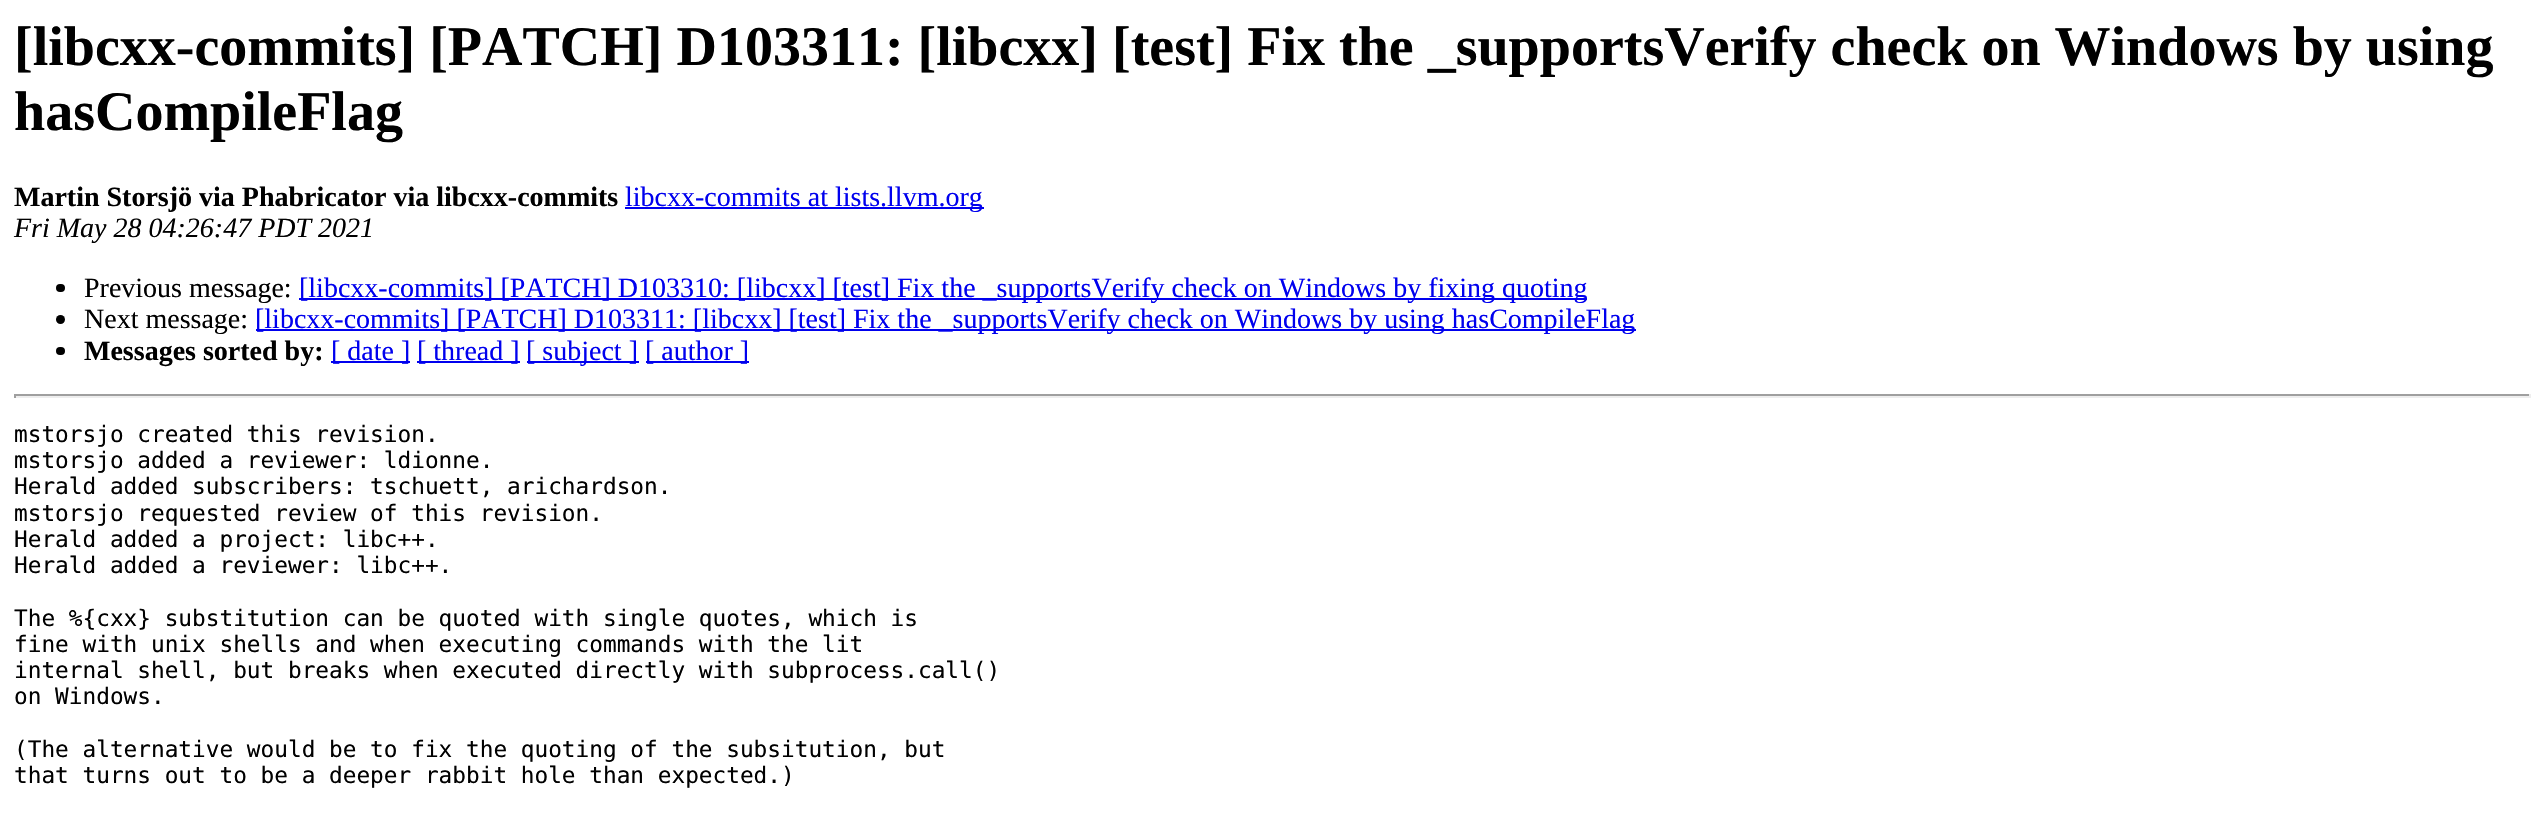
void draw(SkCanvas* canvas) {
	SkPaint paint;
	paint.setAntiAlias(true);
	canvas->clear(0xffffffff);
	SkFont f1(fontMgr->matchFamilyStyle("Liberation Serif", SkFontStyle::Bold()), 56);
	f1.setSubpixel(true);
	paint.setColor(0xff000000);
	canvas->drawString("[libcxx-commits] [PATCH] D103311: [libcxx] [test] Fix the _supportsVerify check on Windows by using", 14, 65, f1, paint);
	canvas->drawString("hasCompileFlag", 14, 130, f1, paint);
	SkFont f2(fontMgr->matchFamilyStyle("Liberation Serif", SkFontStyle::Bold()), 28);
	f2.setSubpixel(true);
	canvas->drawString("Martin Storsjö via Phabricator via libcxx-commits", 14, 206, f2, paint);
	paint.setColor(0xff0000ee);
	canvas->drawRect(SkRect::MakeXYWH(625, 207, 359, 2), paint);
	SkFont f3(fontMgr->matchFamilyStyle("Liberation Serif", SkFontStyle::Normal()), 28);
	f3.setSubpixel(true);
	canvas->drawString("libcxx-commits at lists.llvm.org", 625, 206, f3, paint);
	SkFont f4(fontMgr->matchFamilyStyle("Liberation Serif", SkFontStyle::Italic()), 28);
	f4.setSubpixel(true);
	paint.setColor(0xff000000);
	canvas->drawString("Fri May 28 04:26:47 PDT 2021", 14, 237, f4, paint);
	canvas->drawRoundRect(SkRect::MakeXYWH(56, 284, 9, 8), 4, 4, paint);
	canvas->drawString("Previous message:", 84, 297, f3, paint);
	paint.setColor(0xff0000ee);
	canvas->drawRect(SkRect::MakeXYWH(299, 298, 1288, 2), paint);
	canvas->drawString("[libcxx-commits] [PATCH] D103310: [libcxx] [test] Fix the _supportsVerify check on Windows by fixing quoting", 299, 297, f3, paint);
	paint.setColor(0xff000000);
	canvas->drawCircle(60.5, 319.5, 4.5, paint);
	canvas->drawString("Next message:", 84, 328, f3, paint);
	paint.setColor(0xff0000ee);
	canvas->drawRect(SkRect::MakeXYWH(256, 329, 1380, 2), paint);
	canvas->drawString("[libcxx-commits] [PATCH] D103311: [libcxx] [test] Fix the _supportsVerify check on Windows by using hasCompileFlag", 255, 328, f3, paint);
	paint.setColor(0xff000000);
	canvas->drawRoundRect(SkRect::MakeXYWH(56, 347, 9, 8), 4, 4, paint);
	canvas->drawString("Messages sorted by:", 84, 360, f2, paint);
	paint.setColor(0xff0000ee);
	canvas->drawRect(SkRect::MakeXYWH(331, 361, 79, 2), paint);
	canvas->drawString("[ date ]", 331, 360, f3, paint);
	canvas->drawRect(SkRect::MakeXYWH(417, 361, 103, 2), paint);
	canvas->drawString("[ thread ]", 417, 360, f3, paint);
	canvas->drawRect(SkRect::MakeXYWH(527, 361, 112, 2), paint);
	canvas->drawString("[ subject ]", 526, 360, f3, paint);
	canvas->drawRect(SkRect::MakeXYWH(646, 361, 103, 2), paint);
	canvas->drawString("[ author ]", 645, 360, f3, paint);
	paint.setColor(0xff9f9f9f);
	canvas->drawRect(SkRect::MakeXYWH(14, 394, 2517, 2), paint);
	paint.setColor(0xffeeeeee);
	canvas->drawRect(SkRect::MakeXYWH(2529, 394, 2, 4), paint);
	canvas->drawRect(SkRect::MakeXYWH(14, 396, 2517, 2), paint);
	paint.setColor(0xff9f9f9f);
	canvas->drawRect(SkRect::MakeXYWH(14, 394, 2, 4), paint);
	SkFont f5(fontMgr->matchFamilyStyle("DejaVu Sans Mono", SkFontStyle::Normal()), 22.75);
	f5.setSubpixel(true);
	paint.setColor(0xff000000);
	canvas->drawString("mstorsjo created this revision.", 14, 442, f5, paint);
	canvas->drawString("mstorsjo added a reviewer: ldionne.", 14, 468, f5, paint);
	canvas->drawString("Herald added subscribers: tschuett, arichardson.", 14, 494, f5, paint);
	canvas->drawString("mstorsjo requested review of this revision.", 14, 521, f5, paint);
	canvas->drawString("Herald added a project: libc++.", 14, 547, f5, paint);
	canvas->drawString("Herald added a reviewer: libc++.", 14, 573, f5, paint);
	canvas->drawString("The %{cxx} substitution can be quoted with single quotes, which is", 14, 626, f5, paint);
	canvas->drawString("fine with unix shells and when executing commands with the lit", 14, 652, f5, paint);
	canvas->drawString("internal shell, but breaks when executed directly with subprocess.call()", 14, 678, f5, paint);
	canvas->drawString("on Windows.", 14, 704, f5, paint);
	canvas->drawString("(The alternative would be to fix the quoting of the subsitution, but", 14, 757, f5, paint);
	canvas->drawString("that turns out to be a deeper rabbit hole than expected.)", 14, 783, f5, paint);
}
